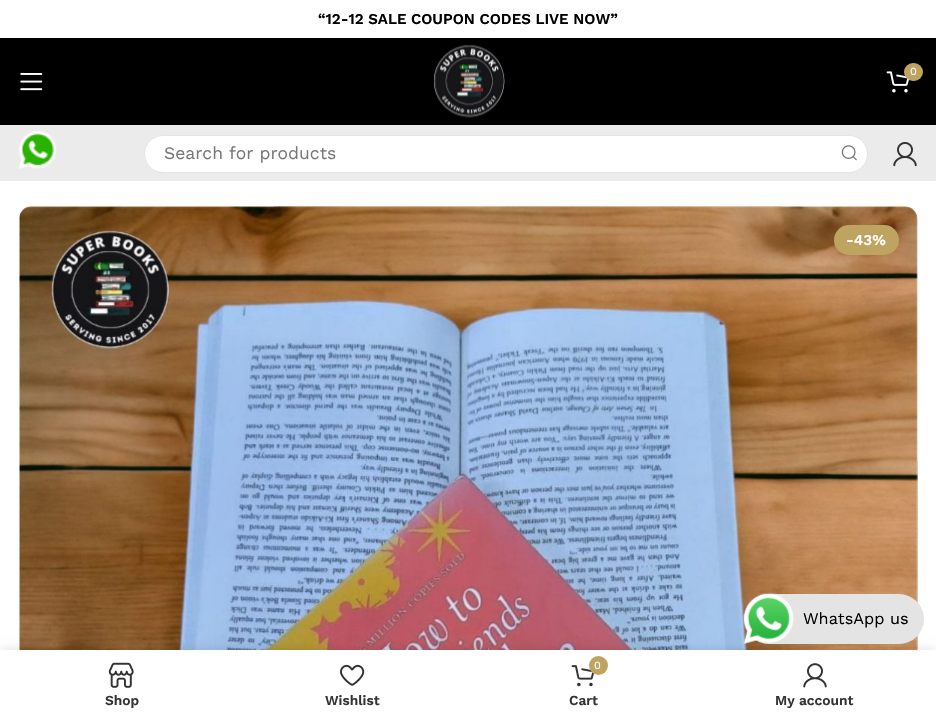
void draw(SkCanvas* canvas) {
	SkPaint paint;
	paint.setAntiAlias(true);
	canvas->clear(0xffffffff);
	SkFont f1(fontMgr->matchFamilyStyle("Work Sans", SkFontStyle(600, SkFontStyle::kNormal_Width, SkFontStyle::kUpright_Slant)), 15);
	f1.setSubpixel(true);
	paint.setColor(0xff000000);
	canvas->drawString("“12-12 SALE COUPON CODES LIVE NOW”", 318, 24, f1, paint);
	canvas->drawRect(SkRect::MakeXYWH(0, 38, 936, 87), paint);
	canvas->drawImageRect(SkImages::DeferredFromEncodedData(SkData::MakeFromFileName("img1.png")), SkRect::MakeXYWH(433, 44, 72, 74), SkSamplingOptions());
	canvas->drawImageRect(SkImages::DeferredFromEncodedData(SkData::MakeFromFileName("img2.png")), SkRect::MakeXYWH(886, 71, 23, 22), SkSamplingOptions());
	paint.setColor(0xffbfa461);
	canvas->drawRoundRect(SkRect::MakeXYWH(904, 63, 19, 18), 9, 9, paint);
	SkFont f2(fontMgr->matchFamilyStyle("Work Sans", SkFontStyle::Normal()), 11);
	f2.setSubpixel(true);
	paint.setColor(0xffffffff);
	canvas->drawString("0", 910, 75, f2, paint);
	canvas->drawImageRect(SkImages::DeferredFromEncodedData(SkData::MakeFromFileName("img3.png")), SkRect::MakeXYWH(20, 73, 23, 18), SkSamplingOptions());
	paint.setColor(0xffebebeb);
	canvas->drawRect(SkRect::MakeXYWH(0, 125, 936, 56), paint);
	canvas->drawImageRect(SkImages::DeferredFromEncodedData(SkData::MakeFromFileName("img4.png")), SkRect::MakeXYWH(19, 131, 38, 38), SkSamplingOptions());
	paint.setColor(0xffffffff);
	canvas->drawRoundRect(SkRect::MakeXYWH(144, 135, 724, 38), 19, 19, paint);
	paint.setStroke(true);
	paint.setStrokeWidth(1);
	paint.setColor(0x1a000000);
	canvas->drawRoundRect(SkRect::MakeXYWH(144.5, 135.5, 723, 37), 18.5, 18.5, paint);
	SkFont f3(fontMgr->matchFamilyStyle("Work Sans", SkFontStyle::Normal()), 17.5);
	f3.setSubpixel(true);
	paint.setStroke(false);
	paint.setColor(0xff777777);
	canvas->drawString("Search for products", 164, 159, f3, paint);
	canvas->drawImageRect(SkImages::DeferredFromEncodedData(SkData::MakeFromFileName("img5.png")), SkRect::MakeXYWH(841, 145, 16, 16), SkSamplingOptions());
	canvas->drawImageRect(SkImages::DeferredFromEncodedData(SkData::MakeFromFileName("img6.png")), SkRect::MakeXYWH(893, 142, 24, 25), SkSamplingOptions());
	canvas->drawImageRect(SkImages::DeferredFromEncodedData(SkData::MakeFromFileName("img7.png")), SkRect::MakeXYWH(19, 206, 899, 444), SkSamplingOptions());
	paint.setColor(0xffbfa461);
	canvas->drawRoundRect(SkRect::MakeXYWH(834, 225, 65, 30), 15, 15, paint);
	paint.setColor(0xffffffff);
	canvas->drawString("-43%", 846, 245, f1, paint);
	paint.setColor(0x1f000000);
	paint.setMaskFilter(SkMaskFilter::MakeBlur(kNormal_SkBlurStyle, 5.5));
	canvas->drawRect(SkRect::MakeXYWH(0, 650, 936, 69), paint);
	paint.setMaskFilter(nullptr);
	paint.setColor(0xffe4e4e4);
	canvas->drawRoundRect(SkRect::MakeXYWH(744, 594, 180, 50), 25, 25, paint);
	canvas->drawImageRect(SkImages::DeferredFromEncodedData(SkData::MakeFromFileName("img8.png")), SkRect::MakeXYWH(743, 593, 51, 51), SkSamplingOptions());
	SkFont f4(fontMgr->matchFamilyStyle("Work Sans", SkFontStyle::Normal()), 16.25);
	f4.setSubpixel(true);
	paint.setColor(0xff000000);
	canvas->drawString("WhatsApp us", 803, 624, f4, paint);
	paint.setColor(0xffffffff);
	canvas->drawRect(SkRect::MakeXYWH(0, 650, 936, 68), paint);
	canvas->drawImageRect(SkImages::DeferredFromEncodedData(SkData::MakeFromFileName("img9.png")), SkRect::MakeXYWH(108, 662, 26, 26), SkSamplingOptions());
	SkFont f5(fontMgr->matchFamilyStyle("Work Sans", SkFontStyle(600, SkFontStyle::kNormal_Width, SkFontStyle::kUpright_Slant)), 13.75);
	f5.setSubpixel(true);
	paint.setColor(0xff333333);
	canvas->drawString("Shop", 105, 705, f5, paint);
	canvas->drawImageRect(SkImages::DeferredFromEncodedData(SkData::MakeFromFileName("img10.png")), SkRect::MakeXYWH(340, 664, 25, 22), SkSamplingOptions());
	canvas->drawString("Wishlist", 325, 705, f5, paint);
	canvas->drawImageRect(SkImages::DeferredFromEncodedData(SkData::MakeFromFileName("img11.png")), SkRect::MakeXYWH(571, 665, 23, 22), SkSamplingOptions());
	paint.setColor(0xffbfa461);
	canvas->drawCircle(598.5, 665.5, 9.5, paint);
	paint.setColor(0xffffffff);
	canvas->drawString("0", 594, 669, f2, paint);
	paint.setColor(0xff333333);
	canvas->drawString("Cart", 569, 705, f5, paint);
	canvas->drawImageRect(SkImages::DeferredFromEncodedData(SkData::MakeFromFileName("img12.png")), SkRect::MakeXYWH(803, 663, 24, 25), SkSamplingOptions());
	canvas->drawString("My account", 775, 705, f5, paint);
}
